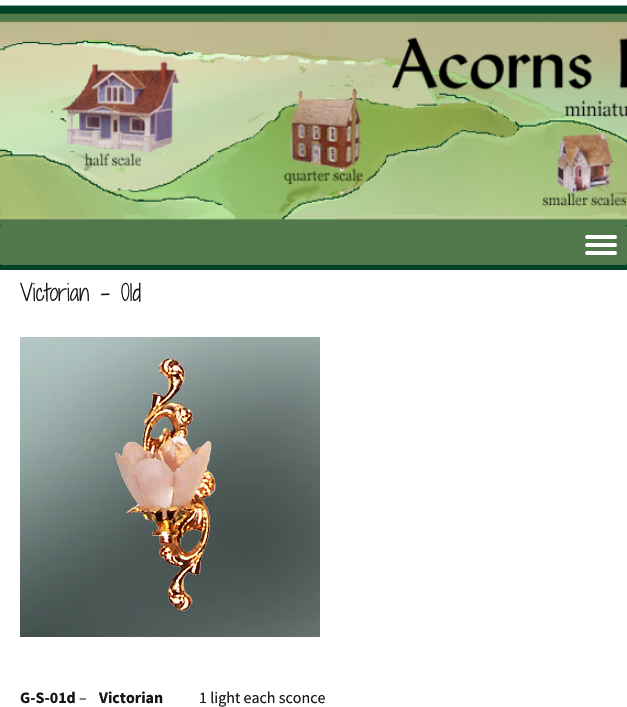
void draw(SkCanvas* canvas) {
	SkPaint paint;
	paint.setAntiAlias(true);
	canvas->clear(0xffffffff);
	canvas->drawImageRect(SkImages::DeferredFromEncodedData(SkData::MakeFromFileName("img1.png")), SkRect::MakeXYWH(0, 5, 627, 220), SkSamplingOptions());
	paint.setColor(0xff004428);
	canvas->drawRect(SkRect::MakeXYWH(0, 225, 627, 45), paint);
	paint.setColor(0xff51784b);
	canvas->drawRoundRect(SkRect::MakeXYWH(0, 225, 627, 40), 2, 2, paint);
	paint.setColor(0xffffffff);
	canvas->drawRoundRect(SkRect::MakeXYWH(585, 235, 32, 4), 2, 2, paint);
	canvas->drawRoundRect(SkRect::MakeXYWH(585, 243, 32, 4), 2, 2, paint);
	canvas->drawRoundRect(SkRect::MakeXYWH(585, 251, 32, 4), 2, 2, paint);
	SkFont f1(fontMgr->matchFamilyStyle("Shadows Into Light Two", SkFontStyle(300, SkFontStyle::kNormal_Width, SkFontStyle::kUpright_Slant)), 22);
	f1.setSubpixel(true);
	paint.setColor(0xff141412);
	canvas->drawString("Victorian – 01d", 20, 301, f1, paint);
	canvas->drawImageRect(SkImages::DeferredFromEncodedData(SkData::MakeFromFileName("img2.png")), SkRect::MakeXYWH(20, 337, 300, 300), SkSamplingOptions());
	SkFont f2(fontMgr->matchFamilyStyle("Source Sans Pro", SkFontStyle::Bold()), 16);
	f2.setSubpixel(true);
	canvas->drawString("G-S-01d", 20, 703, f2, paint);
	SkFont f3(fontMgr->matchFamilyStyle("Source Sans Pro", SkFontStyle::Normal()), 16);
	f3.setSubpixel(true);
	canvas->drawString("–", 79, 703, f3, paint);
	canvas->drawString("Victorian", 99, 703, f2, paint);
	canvas->drawString("1 light each sconce", 199, 703, f3, paint);
}
